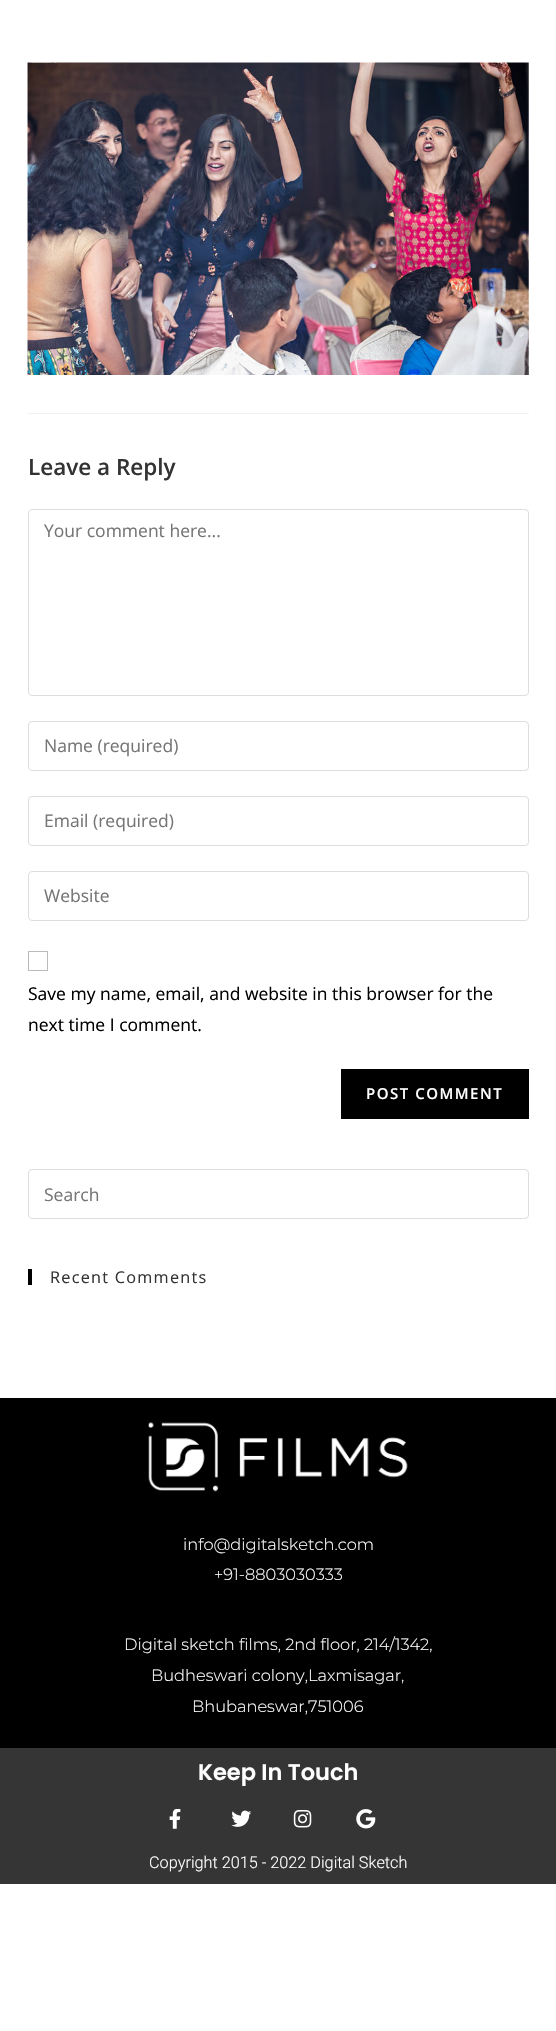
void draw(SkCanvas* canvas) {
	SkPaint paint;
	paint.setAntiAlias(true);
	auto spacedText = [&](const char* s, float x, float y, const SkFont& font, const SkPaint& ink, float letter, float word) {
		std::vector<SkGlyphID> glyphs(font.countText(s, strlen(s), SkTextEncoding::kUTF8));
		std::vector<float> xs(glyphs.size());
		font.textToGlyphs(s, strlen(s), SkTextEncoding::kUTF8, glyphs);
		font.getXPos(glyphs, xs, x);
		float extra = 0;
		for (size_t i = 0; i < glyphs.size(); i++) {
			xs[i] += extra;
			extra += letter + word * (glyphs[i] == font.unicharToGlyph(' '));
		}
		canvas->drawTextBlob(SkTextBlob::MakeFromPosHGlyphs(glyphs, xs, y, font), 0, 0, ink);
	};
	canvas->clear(0xffffffff);
	canvas->drawImageRect(SkImages::DeferredFromEncodedData(SkData::MakeFromFileName("img2.png")), SkRect::MakeXYWH(27, 62, 502, 313), SkSamplingOptions());
	canvas->drawImageRect(SkImages::DeferredFromEncodedData(SkData::MakeFromFileName("img1.png")), SkRect::MakeXYWH(31, 62, 26, 1), SkSamplingOptions());
	paint.setColor(0xfff1f1f1);
	canvas->drawRect(SkRect::MakeXYWH(28, 413, 501, 1), paint);
	SkFont f1(fontMgr->matchFamilyStyle("Open Sans", SkFontStyle(600, SkFontStyle::kNormal_Width, SkFontStyle::kUpright_Slant)), 22.5);
	f1.setSubpixel(true);
	paint.setColor(0xff333333);
	canvas->drawString("Leave a Reply", 28, 475, f1, paint);
	paint.setStroke(true);
	paint.setStrokeWidth(1);
	paint.setColor(0xffdddddd);
	canvas->drawRoundRect(SkRect::MakeXYWH(28.5, 509.5, 500, 186), 3.5, 3.5, paint);
	SkFont f2(fontMgr->matchFamilyStyle("Open Sans", SkFontStyle::Normal()), 17.5);
	f2.setSubpixel(true);
	paint.setStroke(false);
	paint.setColor(0xff757575);
	canvas->drawString("Your comment here...", 44, 537, f2, paint);
	paint.setStroke(true);
	paint.setColor(0xffdddddd);
	canvas->drawRoundRect(SkRect::MakeXYWH(28.5, 721.5, 500, 49), 3.5, 3.5, paint);
	paint.setStroke(false);
	paint.setColor(0xff757575);
	canvas->drawString("Name (required)", 44, 752, f2, paint);
	paint.setStroke(true);
	paint.setColor(0xffdddddd);
	canvas->drawRoundRect(SkRect::MakeXYWH(28.5, 796.5, 500, 49), 3.5, 3.5, paint);
	paint.setStroke(false);
	paint.setColor(0xff757575);
	canvas->drawString("Email (required)", 44, 827, f2, paint);
	paint.setStroke(true);
	paint.setColor(0xffdddddd);
	canvas->drawRoundRect(SkRect::MakeXYWH(28.5, 871.5, 500, 49), 3.5, 3.5, paint);
	paint.setStroke(false);
	paint.setColor(0xff757575);
	canvas->drawString("Website", 44, 902, f2, paint);
	paint.setStroke(true);
	paint.setColor(0xffbbbbbb);
	canvas->drawRect(SkRect::MakeXYWH(28.5, 951.5, 19, 19), paint);
	paint.setStroke(false);
	paint.setColor(0xff000000);
	canvas->drawString("Save my name, email, and website in this browser for the", 28, 1000, f2, paint);
	canvas->drawString("next time I comment.", 28, 1031, f2, paint);
	canvas->drawRect(SkRect::MakeXYWH(341, 1069, 188, 50), paint);
	SkFont f3(fontMgr->matchFamilyStyle("Open Sans", SkFontStyle(600, SkFontStyle::kNormal_Width, SkFontStyle::kUpright_Slant)), 15);
	f3.setSubpixel(true);
	paint.setColor(0xffffffff);
	spacedText("POST COMMENT", 366, 1099, f3, paint, 1.5, 0);
	paint.setStroke(true);
	paint.setColor(0xffdddddd);
	canvas->drawRoundRect(SkRect::MakeXYWH(28.5, 1169.5, 500, 49), 3.5, 3.5, paint);
	paint.setStroke(false);
	paint.setColor(0xff757575);
	canvas->drawString("Search", 44, 1201, f2, paint);
	paint.setColor(0xff000000);
	canvas->drawRect(SkRect::MakeXYWH(28, 1269, 4, 16), paint);
	SkFont f4(fontMgr->matchFamilyStyle("Open Sans", SkFontStyle::Normal()), 16.25);
	f4.setSubpixel(true);
	paint.setColor(0xff333333);
	spacedText("Recent Comments", 50, 1283, f4, paint, 1.25, 0);
	paint.setColor(0xff000000);
	canvas->drawRect(SkRect::MakeXYWH(0, 1398, 556, 350), paint);
	canvas->drawImageRect(SkImages::DeferredFromEncodedData(SkData::MakeFromFileName("img3.png")), SkRect::MakeXYWH(148, 1422, 260, 70), SkSamplingOptions());
	SkFont f5(fontMgr->matchFamilyStyle("Montserrat", SkFontStyle(300, SkFontStyle::kNormal_Width, SkFontStyle::kUpright_Slant)), 16.25);
	f5.setSubpixel(true);
	paint.setColor(0xffffffff);
	canvas->drawString("info@digitalsketch.com", 183, 1550, f5, paint);
	canvas->drawString("+91-8803030333", 214, 1580, f5, paint);
	canvas->drawString("Digital sketch films, 2nd floor, 214/1342,", 124, 1650, f5, paint);
	canvas->drawString("Budheswari colony,Laxmisagar,", 151, 1681, f5, paint);
	canvas->drawString("Bhubaneswar,751006", 192, 1712, f5, paint);
	paint.setColor(0xff353535);
	canvas->drawRect(SkRect::MakeXYWH(0, 1748, 556, 136), paint);
	SkFont f6(fontMgr->matchFamilyStyle("Poppins", SkFontStyle(600, SkFontStyle::kNormal_Width, SkFontStyle::kUpright_Slant)), 22.5);
	f6.setSubpixel(true);
	paint.setColor(0xffffffff);
	canvas->drawString("Keep In Touch", 198, 1780, f6, paint);
	canvas->drawImageRect(SkImages::DeferredFromEncodedData(SkData::MakeFromFileName("img4.png")), SkRect::MakeXYWH(169, 1809, 12, 20), SkSamplingOptions());
	canvas->drawImageRect(SkImages::DeferredFromEncodedData(SkData::MakeFromFileName("img5.png")), SkRect::MakeXYWH(231, 1810, 21, 17), SkSamplingOptions());
	canvas->drawImageRect(SkImages::DeferredFromEncodedData(SkData::MakeFromFileName("img6.png")), SkRect::MakeXYWH(293, 1810, 19, 18), SkSamplingOptions());
	canvas->drawImageRect(SkImages::DeferredFromEncodedData(SkData::MakeFromFileName("img7.png")), SkRect::MakeXYWH(356, 1809, 20, 20), SkSamplingOptions());
	SkFont f7(fontMgr->matchFamilyStyle("Roboto", SkFontStyle(300, SkFontStyle::kNormal_Width, SkFontStyle::kUpright_Slant)), 16.25);
	f7.setSubpixel(true);
	canvas->drawString("Copyright 2015 - 2022 Digital Sketch", 149, 1868, f7, paint);
}
